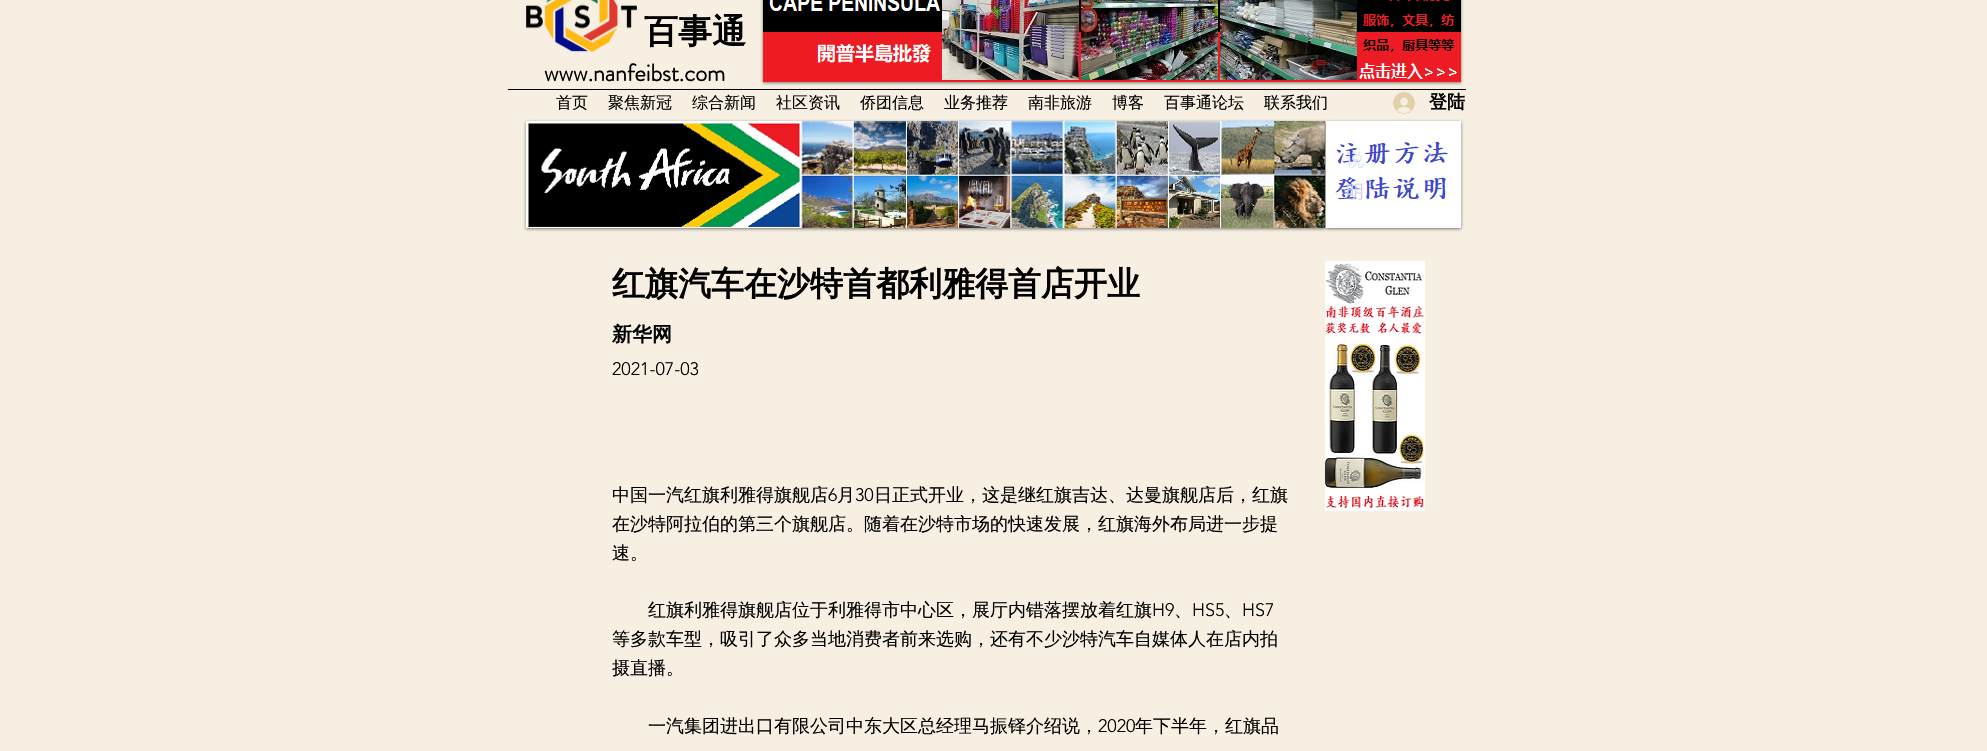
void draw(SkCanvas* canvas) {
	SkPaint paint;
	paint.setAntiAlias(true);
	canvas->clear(0xfff6efe2);
	canvas->drawImageRect(SkImages::DeferredFromEncodedData(SkData::MakeFromFileName("img1.png")), SkRect::MakeXYWH(526, 0, 111, 53), SkSamplingOptions());
	SkFont f1(fontMgr->matchFamilyStyle("WenQuanYi Zen Hei", SkFontStyle::Bold()), 34);
	f1.setSubpixel(true);
	paint.setColor(0xff000000);
	canvas->drawString("百事通", 644, 43, f1, paint);
	paint.setColor(0x80000000);
	paint.setMaskFilter(SkMaskFilter::MakeBlur(kNormal_SkBlurStyle, 1.5));
	canvas->drawRect(SkRect::MakeXYWH(763, -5, 698, 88), paint);
	paint.setMaskFilter(nullptr);
	canvas->drawImageRect(SkImages::DeferredFromEncodedData(SkData::MakeFromFileName("img2.png")), SkRect::MakeXYWH(763, 0, 698, 82), SkSamplingOptions());
	SkFont f2(fontMgr->matchFamilyStyle("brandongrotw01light", SkFontStyle::Bold()), 24);
	f2.setSubpixel(true);
	paint.setColor(0xff000000);
	canvas->drawString("www.nanfeibst.com", 544, 81, f2, paint);
	canvas->drawRect(SkRect::MakeXYWH(508, 89, 958, 1), paint);
	SkFont f3(fontMgr->matchFamilyStyle("WenQuanYi Zen Hei", SkFontStyle(500, SkFontStyle::kNormal_Width, SkFontStyle::kUpright_Slant)), 16);
	f3.setSubpixel(true);
	canvas->drawString("首页", 556, 108, f3, paint);
	canvas->drawString("聚焦新冠", 608, 108, f3, paint);
	canvas->drawString("综合新闻", 692, 108, f3, paint);
	canvas->drawString("社区资讯", 776, 108, f3, paint);
	canvas->drawString("侨团信息", 860, 108, f3, paint);
	canvas->drawString("业务推荐", 944, 108, f3, paint);
	canvas->drawString("南非旅游", 1028, 108, f3, paint);
	canvas->drawString("博客", 1112, 108, f3, paint);
	canvas->drawString("百事通论坛", 1164, 108, f3, paint);
	canvas->drawString("联系我们", 1264, 108, f3, paint);
	canvas->drawImageRect(SkImages::DeferredFromEncodedData(SkData::MakeFromFileName("img3.png")), SkRect::MakeXYWH(1393, 92, 22, 22), SkSamplingOptions());
	SkFont f4(fontMgr->matchFamilyStyle("WenQuanYi Zen Hei", SkFontStyle::Bold()), 18);
	f4.setSubpixel(true);
	canvas->drawString("登陆", 1429, 108, f4, paint);
	paint.setColor(0x80000000);
	paint.setMaskFilter(SkMaskFilter::MakeBlur(kNormal_SkBlurStyle, 1.5));
	canvas->drawRect(SkRect::MakeXYWH(526, 122, 799, 107), paint);
	paint.setMaskFilter(nullptr);
	canvas->drawImageRect(SkImages::DeferredFromEncodedData(SkData::MakeFromFileName("img4.png")), SkRect::MakeXYWH(526, 121, 799, 107), SkSamplingOptions());
	paint.setMaskFilter(SkMaskFilter::MakeBlur(kNormal_SkBlurStyle, 1.5));
	canvas->drawRect(SkRect::MakeXYWH(1326, 122, 135, 107), paint);
	paint.setMaskFilter(nullptr);
	canvas->drawImageRect(SkImages::DeferredFromEncodedData(SkData::MakeFromFileName("img5.png")), SkRect::MakeXYWH(1326, 121, 135, 107), SkSamplingOptions());
	SkFont f5(fontMgr->matchFamilyStyle("WenQuanYi Zen Hei", SkFontStyle(500, SkFontStyle::kNormal_Width, SkFontStyle::kUpright_Slant)), 18);
	f5.setSubpixel(true);
	paint.setColor(0xffe3e6f8);
	canvas->drawString("说", 1346, 166, f5, paint);
	paint.setColor(0xffd0d2f2);
	canvas->drawString("明", 1346, 198, f5, paint);
	SkFont f6(fontMgr->matchFamilyStyle("WenQuanYi Zen Hei", SkFontStyle::Bold()), 33);
	f6.setSubpixel(true);
	paint.setColor(0xff000000);
	canvas->drawString("红旗汽车在沙特首都利雅得首店开业", 612, 295, f6, paint);
	canvas->drawImageRect(SkImages::DeferredFromEncodedData(SkData::MakeFromFileName("img6.png")), SkRect::MakeXYWH(1325, 261, 100, 250), SkSamplingOptions());
	SkFont f7(fontMgr->matchFamilyStyle("WenQuanYi Zen Hei", SkFontStyle::Bold()), 20);
	f7.setSubpixel(true);
	canvas->drawString("新华网", 612, 341, f7, paint);
	SkFont f8(fontMgr->matchFamilyStyle("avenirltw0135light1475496", SkFontStyle(300, SkFontStyle::kNormal_Width, SkFontStyle::kUpright_Slant)), 18);
	f8.setSubpixel(true);
	canvas->drawString("2021-07-03", 612, 375, f8, paint);
	canvas->drawString("中国一汽红旗利雅得旗舰店", 612, 501, f5, paint);
	canvas->drawString("6", 828, 501, f8, paint);
	canvas->drawString("月", 837, 501, f5, paint);
	canvas->drawString("30", 855, 501, f8, paint);
	canvas->drawString("日正式开业，这是继红旗吉达、达曼旗舰店后，红旗", 874, 501, f5, paint);
	canvas->drawString("在沙特阿拉伯的第三个旗舰店。随着在沙特市场的快速发展，红旗海外布局进一步提", 612, 530, f5, paint);
	canvas->drawString("速。", 612, 559, f5, paint);
	canvas->drawString("红旗利雅得旗舰店位于利雅得市中心区，展厅内错落摆放着红旗", 648, 616, f5, paint);
	canvas->drawString("H9", 1152, 616, f8, paint);
	canvas->drawString("HS5", 1192, 616, f8, paint);
	canvas->drawString("HS7", 1242, 616, f8, paint);
	canvas->drawString("、", 1174, 616, f5, paint);
	canvas->drawString("、", 1224, 616, f5, paint);
	canvas->drawString("等多款车型，吸引了众多当地消费者前来选购，还有不少沙特汽车自媒体人在店内拍", 612, 645, f5, paint);
	canvas->drawString("摄直播。", 612, 674, f5, paint);
	canvas->drawString("一汽集团进出口有限公司中东大区总经理马振铎介绍说，", 648, 732, f5, paint);
	canvas->drawString("2020", 1098, 732, f8, paint);
	canvas->drawString("年下半年，红旗品", 1135, 732, f5, paint);
}
